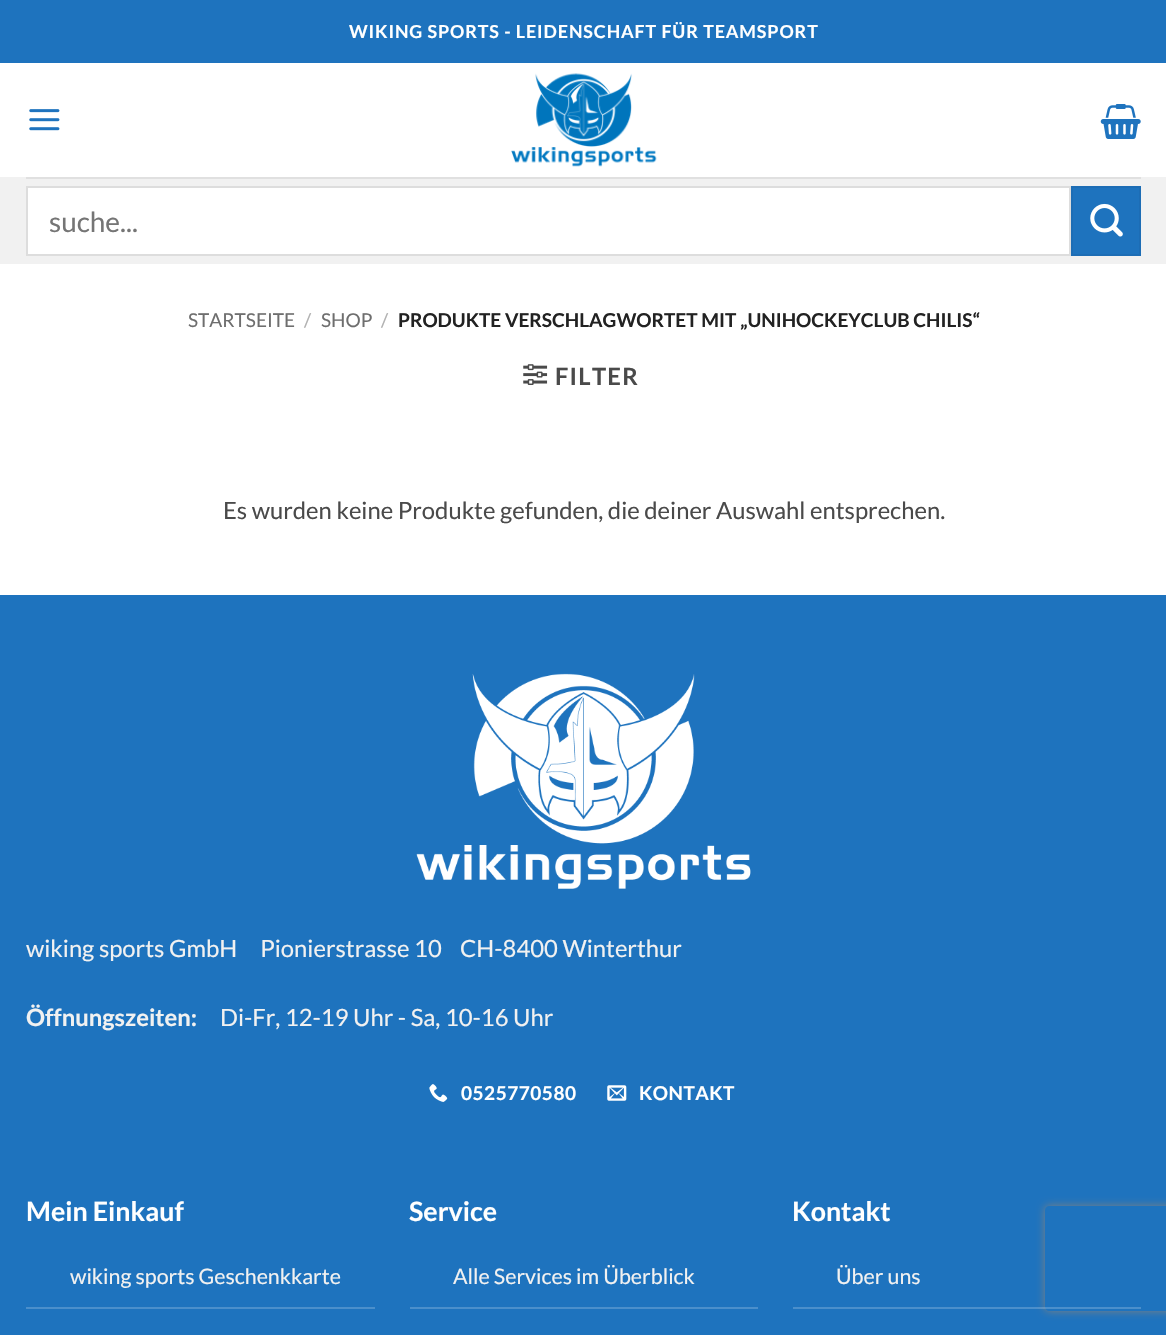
void draw(SkCanvas* canvas) {
	SkPaint paint;
	paint.setAntiAlias(true);
	auto spacedText = [&](const char* s, float x, float y, const SkFont& font, const SkPaint& ink, float letter, float word) {
		std::vector<SkGlyphID> glyphs(font.countText(s, strlen(s), SkTextEncoding::kUTF8));
		std::vector<float> xs(glyphs.size());
		font.textToGlyphs(s, strlen(s), SkTextEncoding::kUTF8, glyphs);
		font.getXPos(glyphs, xs, x);
		float extra = 0;
		for (size_t i = 0; i < glyphs.size(); i++) {
			xs[i] += extra;
			extra += letter + word * (glyphs[i] == font.unicharToGlyph(' '));
		}
		canvas->drawTextBlob(SkTextBlob::MakeFromPosHGlyphs(glyphs, xs, y, font), 0, 0, ink);
	};
	auto svgPath = [&](const char* data, bool evenOdd = false) {
		SkPath result = *SkParsePath::FromSVGString(data);
		if (evenOdd) result.setFillType(SkPathFillType::kEvenOdd);
		return result;
	};
	canvas->clear(0xffffffff);
	paint.setColor(0xff1e73be);
	canvas->drawRect(SkRect::MakeXYWH(0, 0, 1166, 63), paint);
	SkFont f1(fontMgr->matchFamilyStyle("Lato", SkFontStyle::Bold()), 17.85);
	f1.setSubpixel(true);
	paint.setColor(0xffffffff);
	spacedText("WIKING SPORTS - LEIDENSCHAFT FÜR TEAMSPORT", 349, 38, f1, paint, 0.9, 0);
	canvas->drawImageRect(SkImages::DeferredFromEncodedData(SkData::MakeFromFileName("img1.png")), SkRect::MakeXYWH(29, 109, 31, 22), SkSamplingOptions());
	canvas->drawImageRect(SkImages::DeferredFromEncodedData(SkData::MakeFromFileName("img2.png")), SkRect::MakeXYWH(511, 73, 146, 94), SkSamplingOptions());
	canvas->drawImageRect(SkImages::DeferredFromEncodedData(SkData::MakeFromFileName("img3.png")), SkRect::MakeXYWH(1100, 104, 41, 35), SkSamplingOptions());
	paint.setColor(0xfff1f1f1);
	canvas->drawRect(SkRect::MakeXYWH(0, 177, 1166, 87), paint);
	paint.setColor(0xffe0e0e0);
	canvas->drawRect(SkRect::MakeXYWH(26, 177, 1115, 2), paint);
	paint.setColor(0xffffffff);
	canvas->drawRect(SkRect::MakeXYWH(27, 187, 1043, 68), paint);
	paint.setStroke(true);
	paint.setStrokeWidth(2);
	paint.setColor(0xffdddddd);
	canvas->drawRect(SkRect::MakeXYWH(27, 187, 1043, 68), paint);
	SkFont f2(fontMgr->matchFamilyStyle("Lato", SkFontStyle::Normal()), 28);
	f2.setSubpixel(true);
	paint.setStroke(false);
	paint.setColor(0xff757575);
	canvas->drawString("suche...", 49, 232, f2, paint);
	paint.setColor(0xff1e73be);
	canvas->drawRect(SkRect::MakeXYWH(1072, 187, 68, 68), paint);
	paint.setStroke(true);
	paint.setColor(0xff1d6db5);
	canvas->drawRect(SkRect::MakeXYWH(1072, 187, 68, 68), paint);
	canvas->drawImageRect(SkImages::DeferredFromEncodedData(SkData::MakeFromFileName("img4.png")), SkRect::MakeXYWH(1090, 203, 33, 34), SkSamplingOptions());
	SkFont f3(fontMgr->matchFamilyStyle("Lato", SkFontStyle::Normal()), 19.05);
	f3.setSubpixel(true);
	paint.setStroke(false);
	paint.setColor(0xff6e6e6e);
	canvas->drawString("STARTSEITE", 188, 327, f3, paint);
	paint.setColor(0xffb2b2b2);
	canvas->drawString("/", 304, 327, f3, paint);
	paint.setColor(0xff6e6e6e);
	canvas->drawString("SHOP", 321, 327, f3, paint);
	paint.setColor(0xffb2b2b2);
	canvas->drawString("/", 381, 327, f3, paint);
	SkFont f4(fontMgr->matchFamilyStyle("Lato", SkFontStyle::Bold()), 19.05);
	f4.setSubpixel(true);
	paint.setColor(0xff222222);
	canvas->drawString("PRODUKTE VERSCHLAGWORTET MIT „UNIHOCKEYCLUB CHILIS“", 398, 327, f4, paint);
	canvas->drawImageRect(SkImages::DeferredFromEncodedData(SkData::MakeFromFileName("img5.png")), SkRect::MakeXYWH(523, 364, 25, 21), SkSamplingOptions());
	SkFont f5(fontMgr->matchFamilyStyle("Lato", SkFontStyle::Bold()), 23.8);
	f5.setSubpixel(true);
	paint.setColor(0xff4a4a4a);
	spacedText("FILTER", 555, 385, f5, paint, 1.25, 0);
	SkFont f6(fontMgr->matchFamilyStyle("Lato", SkFontStyle::Normal()), 23.8);
	f6.setSubpixel(true);
	canvas->drawString("Es wurden keine Produkte gefunden, die deiner Auswahl entsprechen.", 223, 519, f6, paint);
	paint.setColor(0xff1e73be);
	canvas->drawRect(SkRect::MakeXYWH(0, 595, 1166, 740), paint);
	canvas->drawImageRect(SkImages::DeferredFromEncodedData(SkData::MakeFromFileName("img6.png")), SkRect::MakeXYWH(416, 673, 335, 216), SkSamplingOptions());
	paint.setColor(0xfff1f1f1);
	canvas->drawString("wiking sports GmbH     Pionierstrasse 10    CH-8400 Winterthur", 26, 957, f6, paint);
	canvas->drawString("Öffnungszeiten:", 26, 1026, f5, paint);
	canvas->drawString("Di-Fr, 12-19 Uhr - Sa, 10-16 Uhr", 220, 1026, f6, paint);
	canvas->drawImageRect(SkImages::DeferredFromEncodedData(SkData::MakeFromFileName("img7.png")), SkRect::MakeXYWH(429, 1084, 19, 18), SkSamplingOptions());
	paint.setColor(0xffffffff);
	spacedText("0525770580", 461, 1100, f4, paint, 0.5, 0);
	canvas->drawImageRect(SkImages::DeferredFromEncodedData(SkData::MakeFromFileName("img8.png")), SkRect::MakeXYWH(607, 1085, 20, 16), SkSamplingOptions());
	spacedText("KONTAKT", 639, 1100, f4, paint, 0.5, 0);
	SkFont f7(fontMgr->matchFamilyStyle("Lato", SkFontStyle::Bold()), 26.75);
	f7.setSubpixel(true);
	canvas->drawString("Mein Einkauf", 26, 1221, f7, paint);
	paint.setColor(0xff4b8fcb);
	canvas->drawRect(SkRect::MakeXYWH(26, 1307, 349, 2), paint);
	SkFont f8(fontMgr->matchFamilyStyle("Lato", SkFontStyle::Normal()), 21.4);
	f8.setSubpixel(true);
	paint.setColor(0xfff1f1f1);
	canvas->drawString("wiking sports Geschenkkarte", 70, 1284, f8, paint);
	paint.setColor(0xffffffff);
	canvas->drawString("Service", 409, 1221, f7, paint);
	paint.setColor(0xff4b8fcb);
	canvas->drawRect(SkRect::MakeXYWH(410, 1307, 348, 2), paint);
	paint.setColor(0xfff1f1f1);
	canvas->drawString("Alle Services im Überblick", 453, 1284, f8, paint);
	paint.setColor(0xffffffff);
	canvas->drawString("Kontakt", 792, 1221, f7, paint);
	canvas->save();
	canvas->clipPath(svgPath("M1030 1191H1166V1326H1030ZM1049 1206H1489C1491 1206 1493 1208 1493 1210V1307C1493 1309 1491 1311 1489 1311H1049C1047 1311 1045 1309 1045 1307V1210C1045 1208 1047 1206 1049 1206Z", true), true);
	paint.setColor(0xff808080);
	paint.setMaskFilter(SkMaskFilter::MakeBlur(kNormal_SkBlurStyle, 4.5));
	canvas->drawRoundRect(SkRect::MakeXYWH(1045, 1206, 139, 105), 4, 4, paint);
	paint.setMaskFilter(nullptr);
	canvas->restore();
	paint.setColor(0x33ffffff);
	canvas->drawRect(SkRect::MakeXYWH(793, 1307, 348, 2), paint);
	paint.setColor(0xfff1f1f1);
	canvas->drawString("Über uns", 836, 1284, f8, paint);
}
